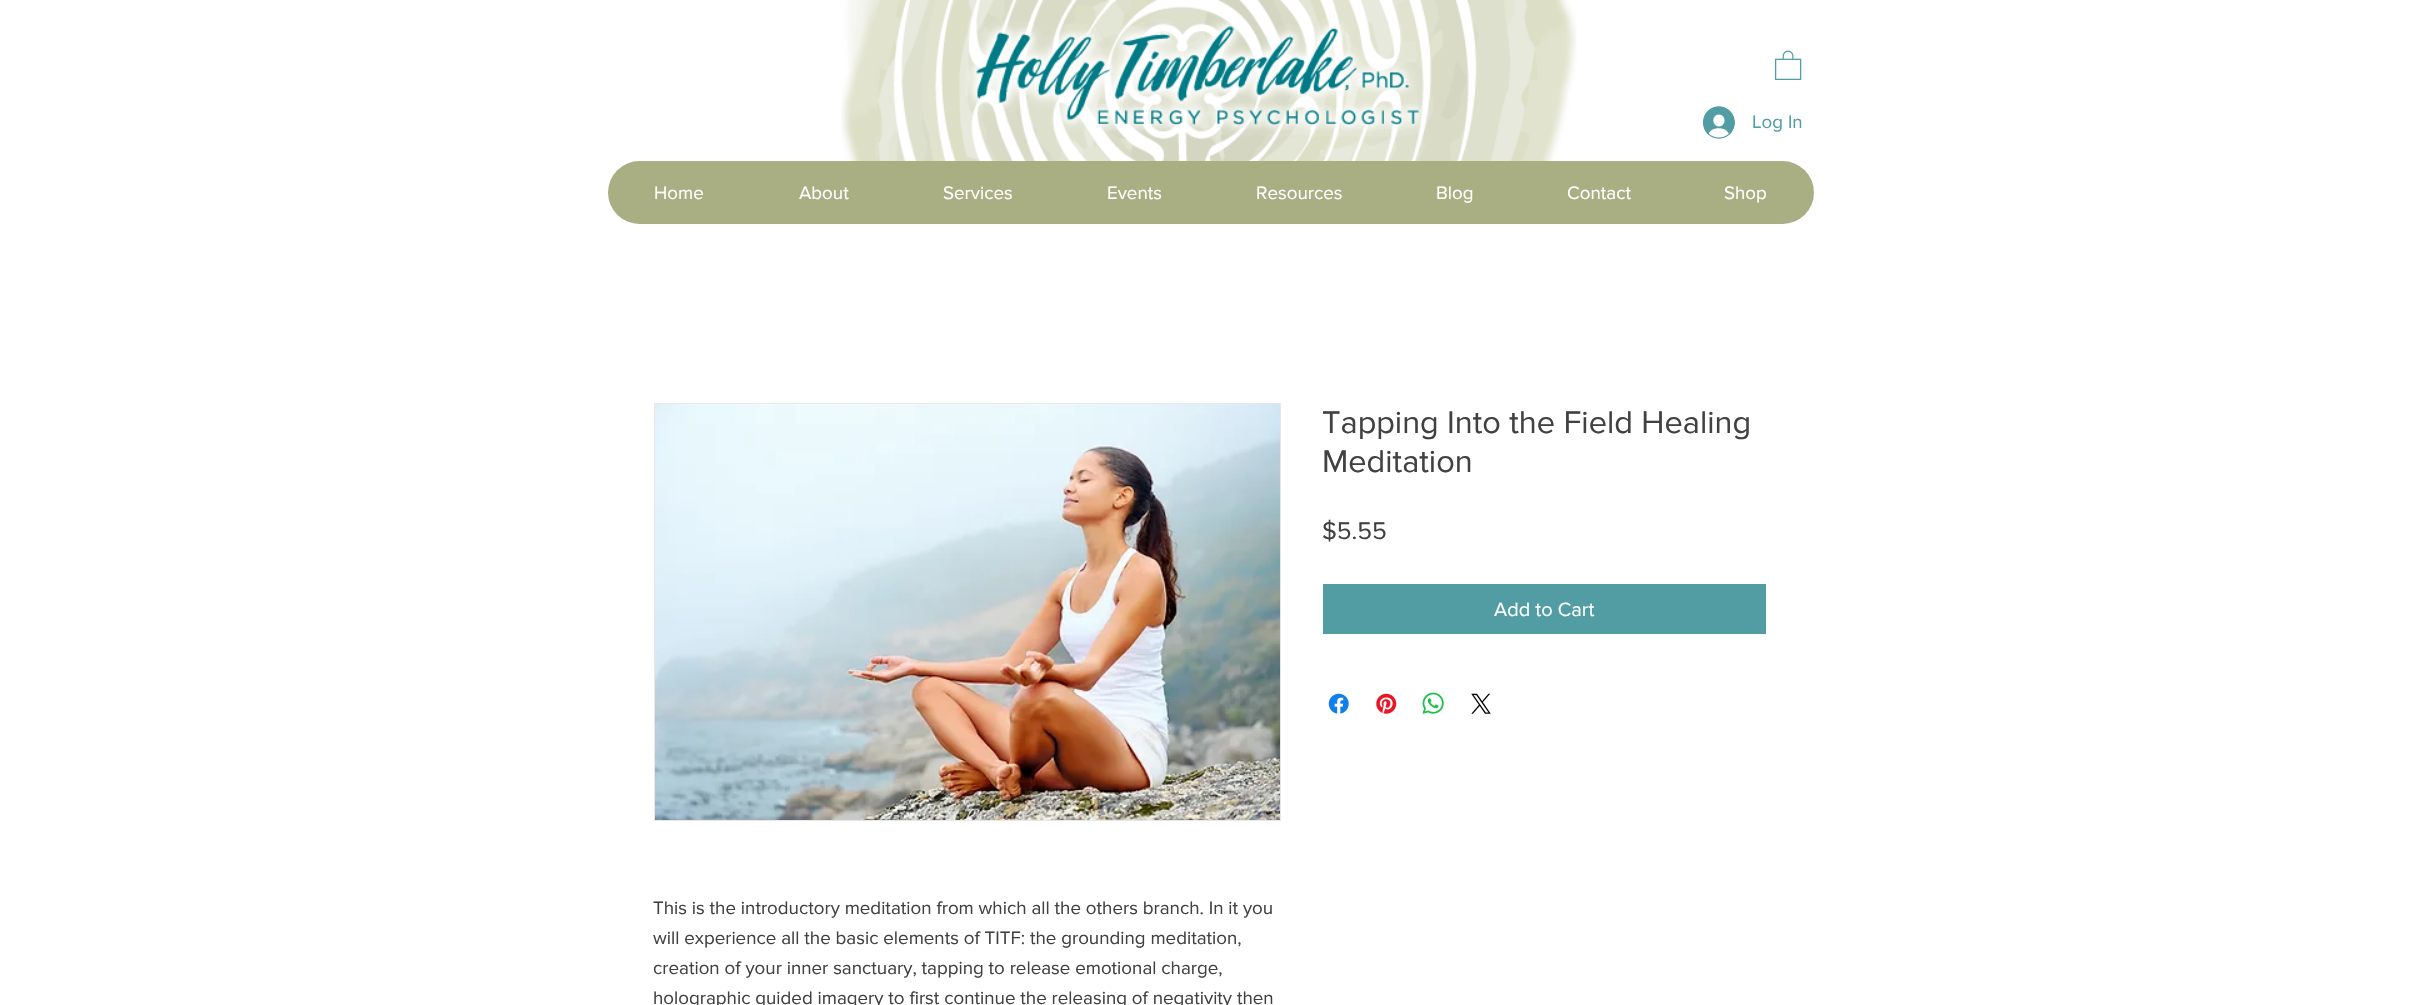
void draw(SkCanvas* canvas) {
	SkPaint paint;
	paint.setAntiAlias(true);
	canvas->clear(0xffffffff);
	canvas->drawImageRect(SkImages::DeferredFromEncodedData(SkData::MakeFromFileName("img1.png")), SkRect::MakeXYWH(841, 0, 736, 161), SkSamplingOptions());
	canvas->drawImageRect(SkImages::DeferredFromEncodedData(SkData::MakeFromFileName("img2.png")), SkRect::MakeXYWH(1775, 50, 27, 30), SkSamplingOptions());
	canvas->drawImageRect(SkImages::DeferredFromEncodedData(SkData::MakeFromFileName("img3.png")), SkRect::MakeXYWH(1703, 106, 32, 33), SkSamplingOptions());
	SkFont f1(fontMgr->matchFamilyStyle("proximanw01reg", SkFontStyle::Normal()), 18.75);
	f1.setSubpixel(true);
	paint.setColor(0xff529da4);
	canvas->drawString("Log In", 1752, 128, f1, paint);
	paint.setColor(0xffa9ae83);
	canvas->drawRoundRect(SkRect::MakeXYWH(608, 161, 1206, 63), 31.5, 31.5, paint);
	paint.setColor(0xffffffff);
	canvas->drawString("Home", 654, 199, f1, paint);
	canvas->drawString("About", 799, 199, f1, paint);
	canvas->drawString("Services", 943, 199, f1, paint);
	canvas->drawString("Events", 1107, 199, f1, paint);
	canvas->drawString("Resources", 1256, 199, f1, paint);
	canvas->drawString("Blog", 1436, 199, f1, paint);
	canvas->drawString("Contact", 1567, 199, f1, paint);
	canvas->drawString("Shop", 1724, 199, f1, paint);
	SkFont f2(fontMgr->matchFamilyStyle("proximanw01reg", SkFontStyle::Normal()), 32.5);
	f2.setSubpixel(true);
	paint.setColor(0xff414141);
	canvas->drawString("Tapping Into the Field Healing", 1322, 433, f2, paint);
	canvas->drawString("Meditation", 1322, 472, f2, paint);
	SkFont f3(fontMgr->matchFamilyStyle("proximanw01reg", SkFontStyle::Normal()), 25);
	f3.setSubpixel(true);
	canvas->drawString("$5.55", 1322, 539, f3, paint);
	paint.setColor(0xff529da4);
	canvas->drawRect(SkRect::MakeXYWH(1323, 584, 443, 50), paint);
	SkFont f4(fontMgr->matchFamilyStyle("proximanw01reg", SkFontStyle::Normal()), 20);
	f4.setSubpixel(true);
	paint.setColor(0xffffffff);
	canvas->drawString("Add to Cart", 1494, 616, f4, paint);
	canvas->drawImageRect(SkImages::DeferredFromEncodedData(SkData::MakeFromFileName("img4.png")), SkRect::MakeXYWH(1328, 693, 21, 21), SkSamplingOptions());
	canvas->drawImageRect(SkImages::DeferredFromEncodedData(SkData::MakeFromFileName("img5.png")), SkRect::MakeXYWH(1376, 693, 21, 21), SkSamplingOptions());
	canvas->drawImageRect(SkImages::DeferredFromEncodedData(SkData::MakeFromFileName("img6.png")), SkRect::MakeXYWH(1422, 692, 22, 22), SkSamplingOptions());
	canvas->drawImageRect(SkImages::DeferredFromEncodedData(SkData::MakeFromFileName("img7.png")), SkRect::MakeXYWH(1471, 693, 20, 21), SkSamplingOptions());
	paint.setStroke(true);
	paint.setStrokeWidth(1);
	paint.setColor(0xffe8e6e6);
	canvas->drawRect(SkRect::MakeXYWH(654.5, 403.5, 626, 417), paint);
	canvas->drawImageRect(SkImages::DeferredFromEncodedData(SkData::MakeFromFileName("img8.png")), SkRect::MakeXYWH(655, 403, 625, 417), SkSamplingOptions());
	paint.setStroke(false);
	paint.setColor(0xff414141);
	canvas->drawString("This is the introductory meditation from which all the others branch. In it you", 653, 914, f1, paint);
	canvas->drawString("will experience all the basic elements of TITF: the grounding meditation,", 653, 944, f1, paint);
	canvas->drawString("creation of your inner sanctuary, tapping to release emotional charge,", 653, 974, f1, paint);
	canvas->drawString("holographic guided imagery to first continue the releasing of negativity then", 653, 1004, f1, paint);
}
